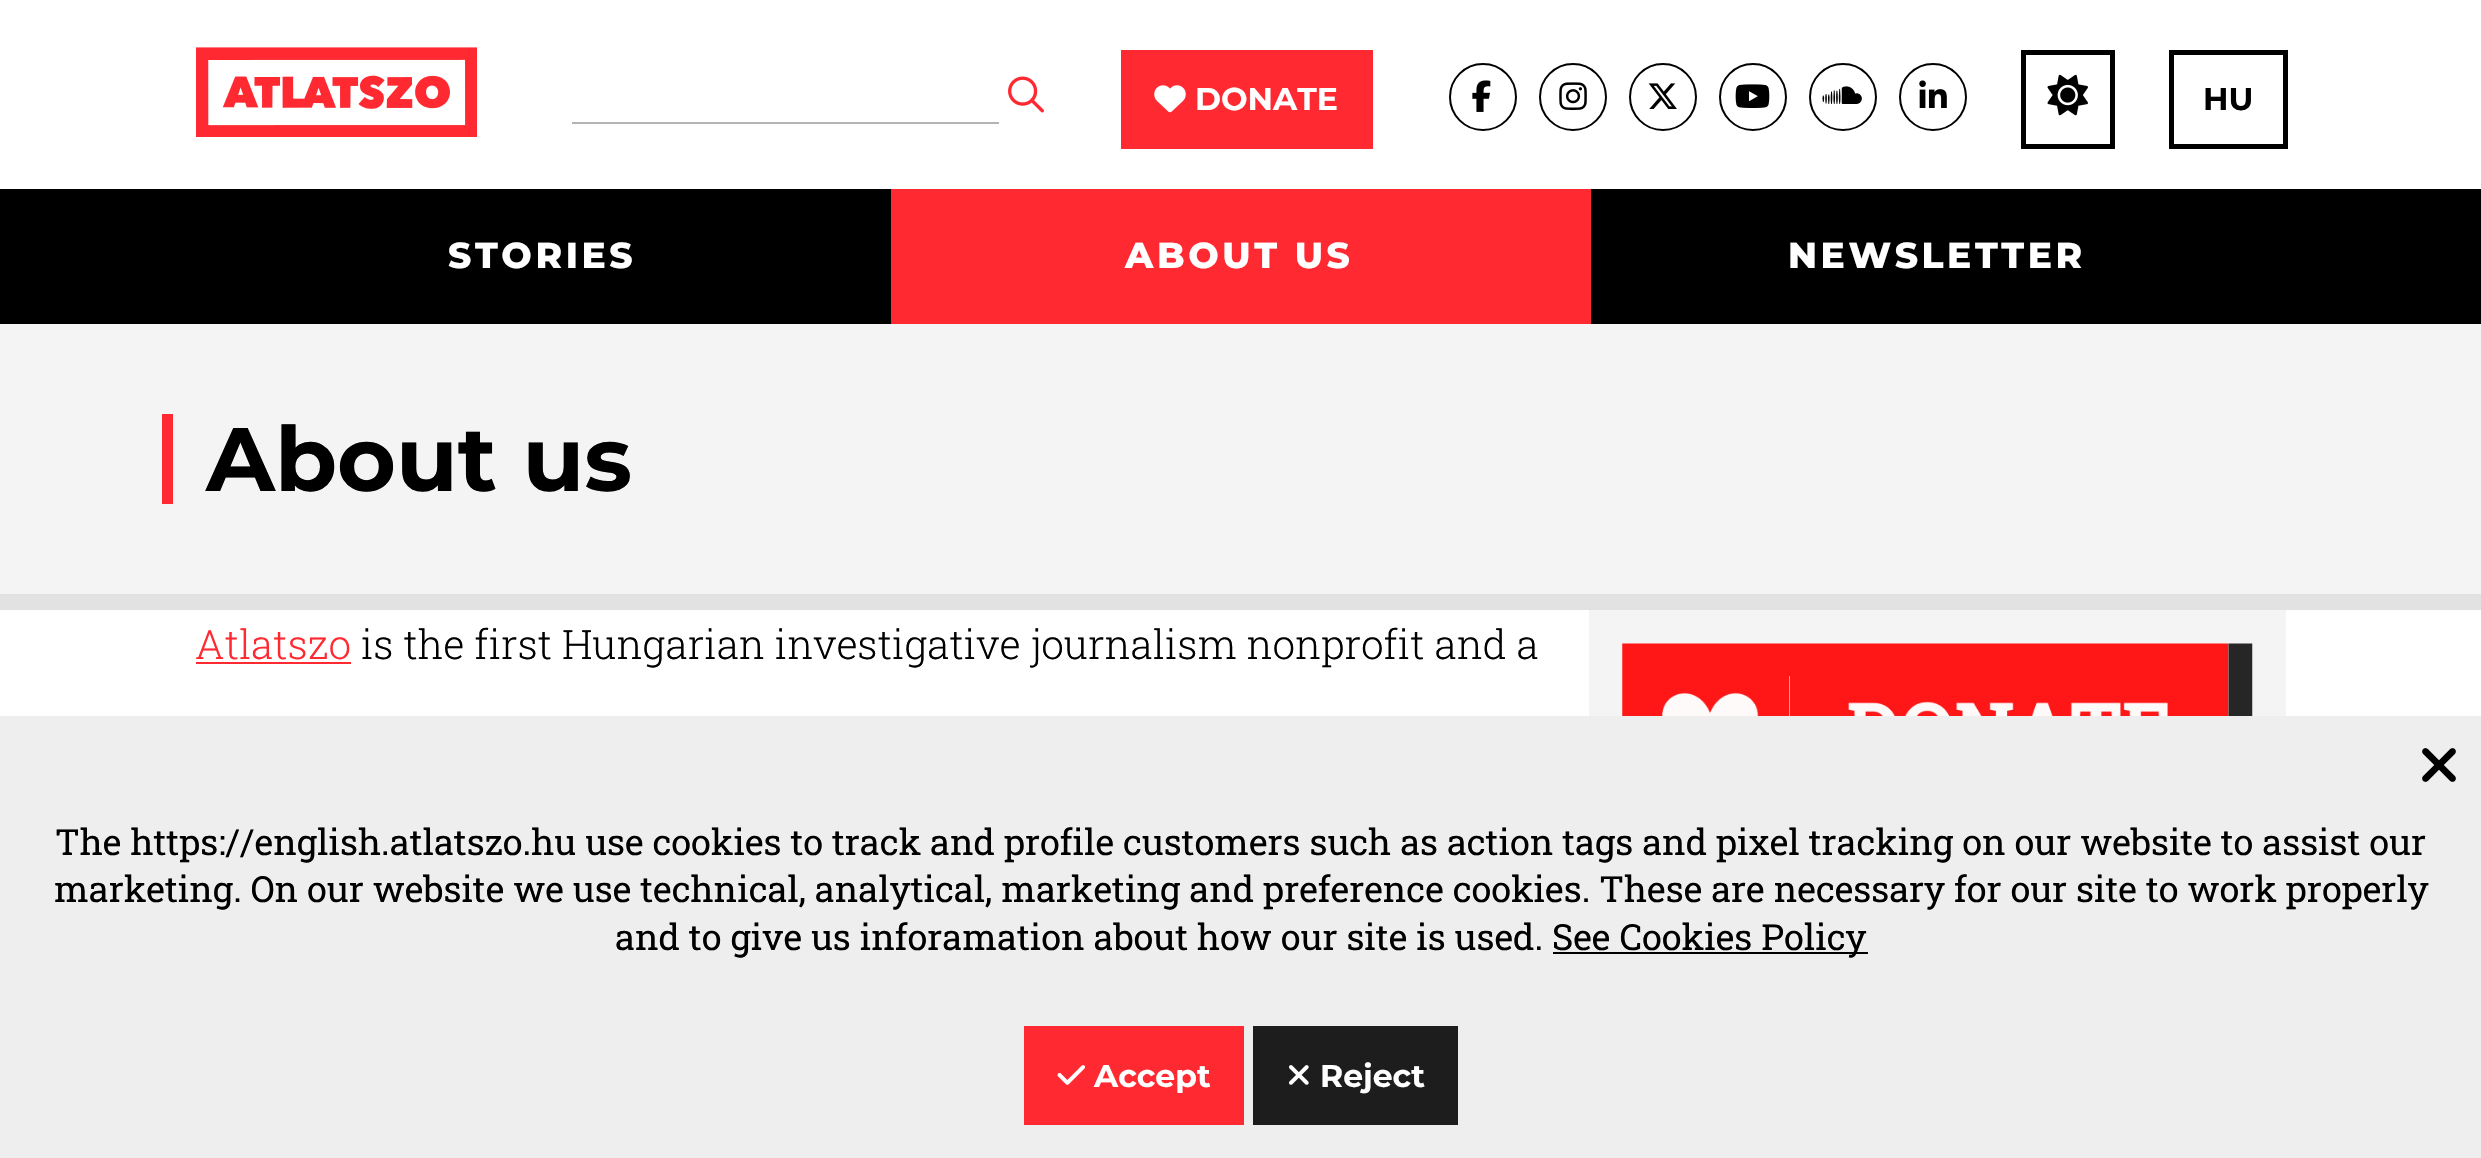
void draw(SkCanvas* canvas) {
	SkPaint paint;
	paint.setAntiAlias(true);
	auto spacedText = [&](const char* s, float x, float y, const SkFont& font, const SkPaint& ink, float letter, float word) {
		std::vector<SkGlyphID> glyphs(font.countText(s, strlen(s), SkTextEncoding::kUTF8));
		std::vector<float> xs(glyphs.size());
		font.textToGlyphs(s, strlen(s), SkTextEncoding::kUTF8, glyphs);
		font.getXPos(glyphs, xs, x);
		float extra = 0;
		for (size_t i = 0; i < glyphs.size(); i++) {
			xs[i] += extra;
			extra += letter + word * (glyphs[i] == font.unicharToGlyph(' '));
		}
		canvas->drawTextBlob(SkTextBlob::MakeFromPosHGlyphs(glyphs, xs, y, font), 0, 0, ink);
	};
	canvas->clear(0xffffffff);
	canvas->drawImageRect(SkImages::DeferredFromEncodedData(SkData::MakeFromFileName("img1.png")), SkRect::MakeXYWH(196, 47, 281, 90), SkSamplingOptions());
	canvas->drawImageRect(SkImages::DeferredFromEncodedData(SkData::MakeFromFileName("img2.png")), SkRect::MakeXYWH(1008, 76, 36, 37), SkSamplingOptions());
	paint.setColor(0xffb4b4b4);
	canvas->drawRect(SkRect::MakeXYWH(572, 122, 427, 2), paint);
	paint.setColor(0xffff2932);
	canvas->drawRect(SkRect::MakeXYWH(1121, 50, 252, 99), paint);
	canvas->drawImageRect(SkImages::DeferredFromEncodedData(SkData::MakeFromFileName("img3.png")), SkRect::MakeXYWH(1154, 85, 32, 28), SkSamplingOptions());
	SkFont f1(fontMgr->matchFamilyStyle("Montserrat", SkFontStyle::Bold()), 31.5);
	f1.setSubpixel(true);
	paint.setColor(0xffffffff);
	canvas->drawString("DONATE", 1195, 110, f1, paint);
	paint.setStroke(true);
	paint.setStrokeWidth(2);
	paint.setColor(0xff000000);
	canvas->drawCircle(1483, 97, 33, paint);
	canvas->drawImageRect(SkImages::DeferredFromEncodedData(SkData::MakeFromFileName("img4.png")), SkRect::MakeXYWH(1472, 80, 19, 32), SkSamplingOptions());
	canvas->drawCircle(1573, 97, 33, paint);
	canvas->drawImageRect(SkImages::DeferredFromEncodedData(SkData::MakeFromFileName("img5.png")), SkRect::MakeXYWH(1559, 82, 28, 28), SkSamplingOptions());
	canvas->drawCircle(1663, 97, 33, paint);
	canvas->drawImageRect(SkImages::DeferredFromEncodedData(SkData::MakeFromFileName("img6.png")), SkRect::MakeXYWH(1648, 83, 29, 26), SkSamplingOptions());
	canvas->drawCircle(1753, 97, 33, paint);
	canvas->drawImageRect(SkImages::DeferredFromEncodedData(SkData::MakeFromFileName("img7.png")), SkRect::MakeXYWH(1735, 84, 35, 24), SkSamplingOptions());
	canvas->drawCircle(1843, 97, 33, paint);
	canvas->drawImageRect(SkImages::DeferredFromEncodedData(SkData::MakeFromFileName("img8.png")), SkRect::MakeXYWH(1822, 86, 40, 18), SkSamplingOptions());
	canvas->drawCircle(1933, 97, 33, paint);
	canvas->drawImageRect(SkImages::DeferredFromEncodedData(SkData::MakeFromFileName("img9.png")), SkRect::MakeXYWH(1919, 80, 28, 28), SkSamplingOptions());
	paint.setStrokeWidth(5);
	canvas->drawRect(SkRect::MakeXYWH(2023.5, 52.5, 89, 94), paint);
	canvas->drawImageRect(SkImages::DeferredFromEncodedData(SkData::MakeFromFileName("img10.png")), SkRect::MakeXYWH(2047, 74, 41, 42), SkSamplingOptions());
	canvas->drawRect(SkRect::MakeXYWH(2171.5, 52.5, 114, 94), paint);
	paint.setStroke(false);
	canvas->drawString("HU", 2203, 110, f1, paint);
	canvas->drawRect(SkRect::MakeXYWH(0, 189, 2481, 135), paint);
	SkFont f2(fontMgr->matchFamilyStyle("Montserrat", SkFontStyle(800, SkFontStyle::kNormal_Width, SkFontStyle::kUpright_Slant)), 36);
	f2.setSubpixel(true);
	paint.setColor(0xffffffff);
	spacedText("STORIES", 448, 268, f2, paint, 3.6, 0);
	paint.setColor(0xffff2932);
	canvas->drawRect(SkRect::MakeXYWH(891, 189, 700, 135), paint);
	paint.setColor(0xffffffff);
	spacedText("ABOUT US", 1125, 268, f2, paint, 3.6, 0);
	spacedText("NEWSLETTER", 1788, 268, f2, paint, 3.6, 0);
	paint.setColor(0xfff4f4f4);
	canvas->drawRect(SkRect::MakeXYWH(0, 324, 2481, 270), paint);
	paint.setColor(0xffe2e2e2);
	canvas->drawRect(SkRect::MakeXYWH(0, 594, 2481, 16), paint);
	paint.setColor(0xffff2932);
	canvas->drawRect(SkRect::MakeXYWH(162, 414, 11, 90), paint);
	SkFont f3(fontMgr->matchFamilyStyle("Montserrat", SkFontStyle::Bold()), 90);
	f3.setSubpixel(true);
	paint.setColor(0xff000000);
	canvas->drawString("About us", 206, 491, f3, paint);
	SkFont f4(fontMgr->matchFamilyStyle("Roboto Slab", SkFontStyle(300, SkFontStyle::kNormal_Width, SkFontStyle::kUpright_Slant)), 40.5);
	f4.setSubpixel(true);
	paint.setColor(0xffff2932);
	canvas->drawString("Atlatszo", 195, 659, f4, paint);
	canvas->drawRect(SkRect::MakeXYWH(196, 662, 155, 2), paint);
	paint.setColor(0xff000000);
	canvas->drawString("is the first Hungarian investigative journalism nonprofit and a", 361, 659, f4, paint);
	paint.setColor(0xfff4f4f4);
	canvas->drawRect(SkRect::MakeXYWH(1589, 610, 697, 106), paint);
	canvas->drawImageRect(SkImages::DeferredFromEncodedData(SkData::MakeFromFileName("img11.png")), SkRect::MakeXYWH(1622, 643, 631, 73), SkSamplingOptions());
	paint.setColor(0xffeeeeee);
	canvas->drawRect(SkRect::MakeXYWH(0, 716, 2481, 442), paint);
	canvas->drawImageRect(SkImages::DeferredFromEncodedData(SkData::MakeFromFileName("img12.png")), SkRect::MakeXYWH(2422, 748, 34, 34), SkSamplingOptions());
	SkFont f5(fontMgr->matchFamilyStyle("Roboto Slab", SkFontStyle::Normal()), 36);
	f5.setSubpixel(true);
	paint.setColor(0xff000000);
	canvas->drawString("The https://english.atlatszo.hu use cookies to track and profile customers such as action tags and pixel tracking on our website to assist our", 55, 855, f5, paint);
	canvas->drawString("marketing. On our website we use technical, analytical, marketing and preference cookies. These are necessary for our site to work properly", 54, 902, f5, paint);
	canvas->drawString("and to give us inforamation about how our site is used.", 615, 950, f5, paint);
	canvas->drawRect(SkRect::MakeXYWH(1553, 952, 315, 2), paint);
	canvas->drawString("See Cookies Policy", 1552, 950, f5, paint);
	paint.setColor(0xffff2932);
	canvas->drawRect(SkRect::MakeXYWH(1024, 1026, 220, 99), paint);
	canvas->drawImageRect(SkImages::DeferredFromEncodedData(SkData::MakeFromFileName("img13.png")), SkRect::MakeXYWH(1057, 1065, 28, 20), SkSamplingOptions());
	paint.setColor(0xffffffff);
	canvas->drawString("Accept", 1094, 1087, f1, paint);
	paint.setColor(0xff1d1d1d);
	canvas->drawRect(SkRect::MakeXYWH(1253, 1026, 205, 99), paint);
	canvas->drawImageRect(SkImages::DeferredFromEncodedData(SkData::MakeFromFileName("img14.png")), SkRect::MakeXYWH(1289, 1065, 20, 20), SkSamplingOptions());
	paint.setColor(0xffffffff);
	canvas->drawString("Reject", 1320, 1087, f1, paint);
}
